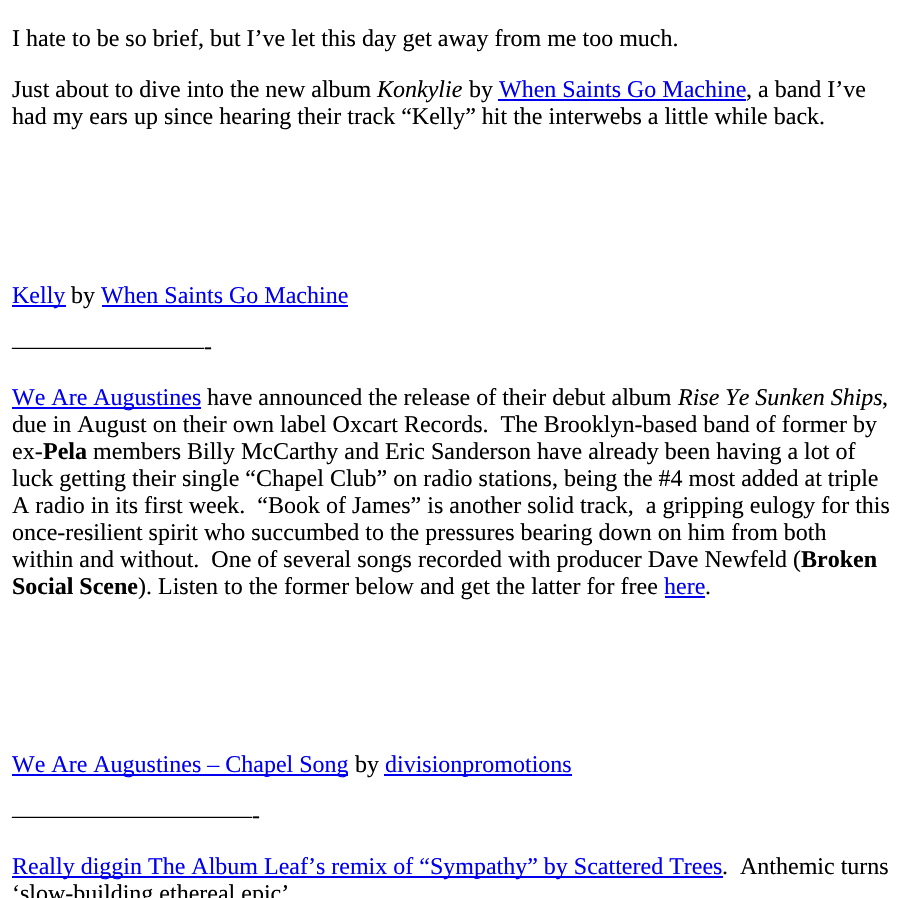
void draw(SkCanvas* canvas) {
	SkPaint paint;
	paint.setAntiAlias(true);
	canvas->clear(0xffffffff);
	SkFont f1(fontMgr->matchFamilyStyle("Liberation Serif", SkFontStyle::Normal()), 24);
	f1.setSubpixel(true);
	paint.setColor(0xff000000);
	canvas->drawString("I hate to be so brief, but I’ve let this day get away from me too much.", 12, 46, f1, paint);
	canvas->drawString("Just about to dive into the new album", 12, 97, f1, paint);
	SkFont f2(fontMgr->matchFamilyStyle("Liberation Serif", SkFontStyle::Italic()), 24);
	f2.setSubpixel(true);
	canvas->drawString("Konkylie", 377, 97, f2, paint);
	canvas->drawString("by", 469, 97, f1, paint);
	paint.setColor(0xff0000ee);
	canvas->drawString("When Saints Go Machine", 499, 97, f1, paint);
	canvas->drawRect(SkRect::MakeXYWH(498, 99, 248, 2), paint);
	paint.setColor(0xff000000);
	canvas->drawString(", a band I’ve", 746, 97, f1, paint);
	canvas->drawString("had my ears up since hearing their track “Kelly” hit the interwebs a little while back.", 12, 124, f1, paint);
	paint.setColor(0xff0000ee);
	canvas->drawRect(SkRect::MakeXYWH(12, 305, 54, 2), paint);
	canvas->drawString("Kelly", 12, 303, f1, paint);
	paint.setColor(0xff000000);
	canvas->drawString("by", 71, 303, f1, paint);
	paint.setColor(0xff0000ee);
	canvas->drawString("When Saints Go Machine", 101, 303, f1, paint);
	canvas->drawRect(SkRect::MakeXYWH(102, 305, 246, 2), paint);
	paint.setColor(0xff000000);
	canvas->drawString("————————-", 12, 354, f1, paint);
	paint.setColor(0xff0000ee);
	canvas->drawRect(SkRect::MakeXYWH(12, 407, 189, 2), paint);
	canvas->drawString("We Are Augustines", 12, 405, f1, paint);
	paint.setColor(0xff000000);
	canvas->drawString("have announced the release of their debut album", 207, 405, f1, paint);
	canvas->drawString("Rise Ye Sunken Ships", 678, 405, f2, paint);
	canvas->drawString(",", 882, 405, f1, paint);
	canvas->drawString("due in August on their own label Oxcart Records.  The Brooklyn-based band of former by", 12, 432, f1, paint);
	canvas->drawString("ex-", 12, 459, f1, paint);
	SkFont f3(fontMgr->matchFamilyStyle("Liberation Serif", SkFontStyle::Bold()), 24);
	f3.setSubpixel(true);
	canvas->drawString("Pela", 43, 459, f3, paint);
	canvas->drawString("members Billy McCarthy and Eric Sanderson have already been having a lot of", 93, 459, f1, paint);
	canvas->drawString("luck getting their single “Chapel Club” on radio stations, being the #4 most added at triple", 12, 486, f1, paint);
	canvas->drawString("A radio in its first week.  “Book of James” is another solid track,  a gripping eulogy for this", 12, 513, f1, paint);
	canvas->drawString("once-resilient spirit who succumbed to the pressures bearing down on him from both", 12, 540, f1, paint);
	canvas->drawString("within and without.  One of several songs recorded with producer Dave Newfeld (", 12, 567, f1, paint);
	canvas->drawString("Broken", 801, 567, f3, paint);
	canvas->drawString("Social Scene", 12, 594, f3, paint);
	canvas->drawString("). Listen to the former below and get the latter for free", 138, 594, f1, paint);
	paint.setColor(0xff0000ee);
	canvas->drawString("here", 664, 594, f1, paint);
	canvas->drawRect(SkRect::MakeXYWH(665, 596, 40, 2), paint);
	paint.setColor(0xff000000);
	canvas->drawString(".", 705, 594, f1, paint);
	paint.setColor(0xff0000ee);
	canvas->drawRect(SkRect::MakeXYWH(12, 774, 336, 2), paint);
	canvas->drawString("We Are Augustines – Chapel Song", 12, 772, f1, paint);
	paint.setColor(0xff000000);
	canvas->drawString("by", 355, 772, f1, paint);
	paint.setColor(0xff0000ee);
	canvas->drawRect(SkRect::MakeXYWH(384, 774, 188, 2), paint);
	canvas->drawString("divisionpromotions", 385, 772, f1, paint);
	paint.setColor(0xff000000);
	canvas->drawString("——————————-", 12, 823, f1, paint);
	paint.setColor(0xff0000ee);
	canvas->drawRect(SkRect::MakeXYWH(12, 876, 711, 2), paint);
	canvas->drawString("Really diggin The Album Leaf’s remix of “Sympathy” by Scattered Trees", 12, 874, f1, paint);
	paint.setColor(0xff000000);
	canvas->drawString(".  Anthemic turns", 722, 874, f1, paint);
	canvas->drawString("‘slow-building ethereal epic’", 12, 901, f1, paint);
}
